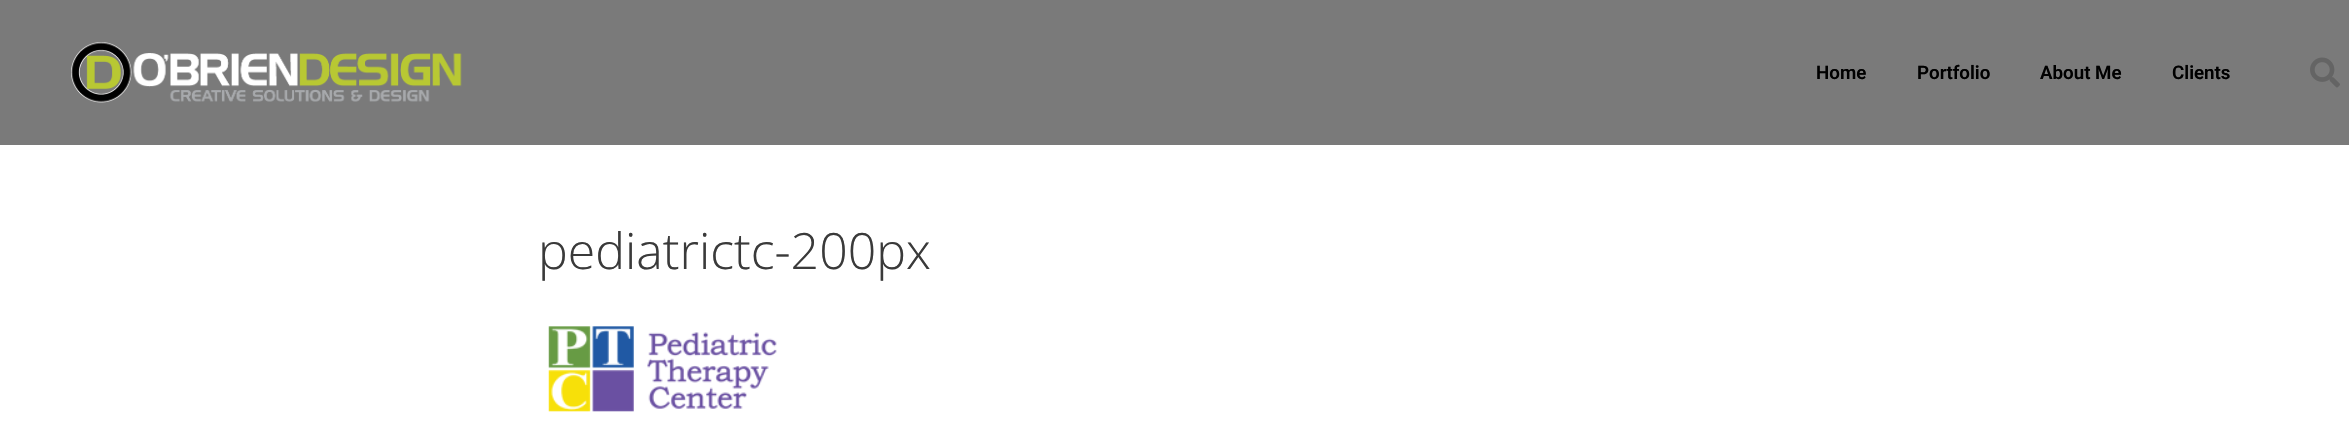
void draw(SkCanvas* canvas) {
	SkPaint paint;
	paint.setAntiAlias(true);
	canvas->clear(0xffffffff);
	paint.setColor(0xff7a7a7a);
	canvas->drawRect(SkRect::MakeXYWH(0, 0, 2349, 145), paint);
	canvas->drawImageRect(SkImages::DeferredFromEncodedData(SkData::MakeFromFileName("img1.png")), SkRect::MakeXYWH(71, 42, 391, 61), SkSamplingOptions());
	SkFont f1(fontMgr->matchFamilyStyle("Roboto", SkFontStyle(600, SkFontStyle::kNormal_Width, SkFontStyle::kUpright_Slant)), 18.75);
	f1.setSubpixel(true);
	paint.setColor(0xff000000);
	canvas->drawString("Home", 1816, 79, f1, paint);
	canvas->drawString("Portfolio", 1917, 79, f1, paint);
	canvas->drawString("About Me", 2040, 79, f1, paint);
	canvas->drawString("Clients", 2172, 79, f1, paint);
	canvas->drawImageRect(SkImages::DeferredFromEncodedData(SkData::MakeFromFileName("img2.png")), SkRect::MakeXYWH(2310, 57, 30, 31), SkSamplingOptions());
	SkFont f2(fontMgr->matchFamilyStyle("Open Sans", SkFontStyle(300, SkFontStyle::kNormal_Width, SkFontStyle::kUpright_Slant)), 50);
	f2.setSubpixel(true);
	paint.setColor(0xff3a3a3a);
	canvas->drawString("pediatrictc-200px", 538, 269, f2, paint);
	canvas->drawImageRect(SkImages::DeferredFromEncodedData(SkData::MakeFromFileName("img3.png")), SkRect::MakeXYWH(548, 326, 229, 86), SkSamplingOptions());
}
